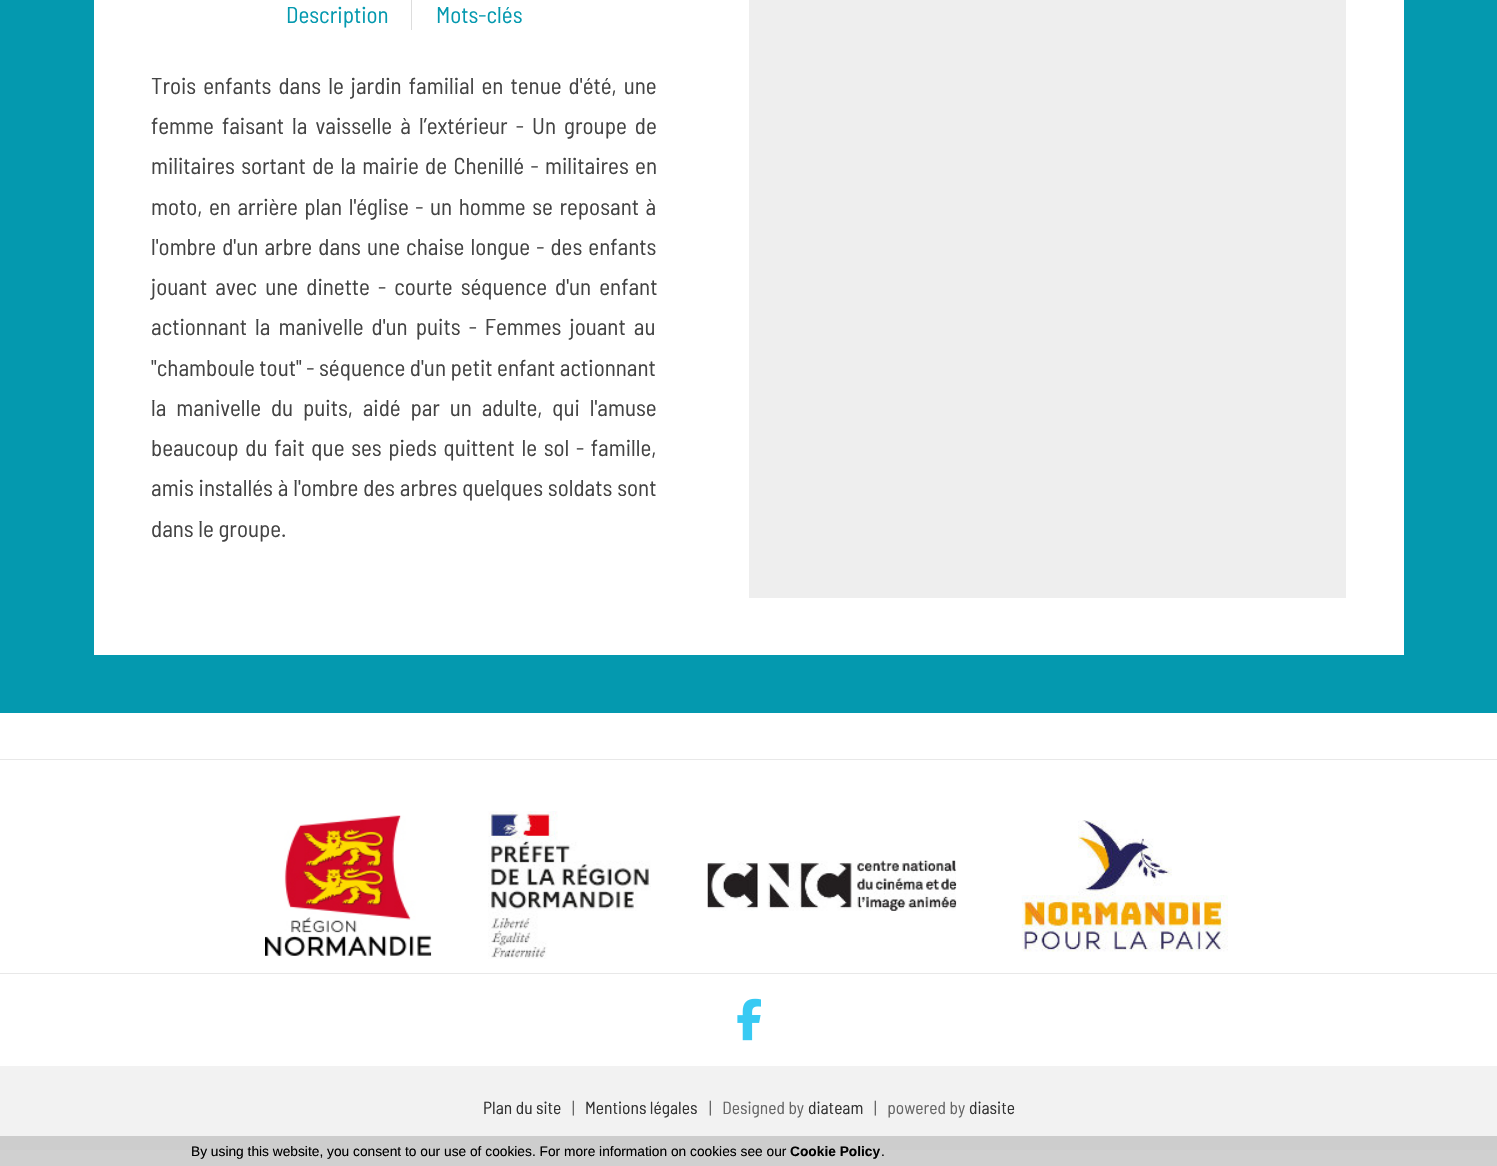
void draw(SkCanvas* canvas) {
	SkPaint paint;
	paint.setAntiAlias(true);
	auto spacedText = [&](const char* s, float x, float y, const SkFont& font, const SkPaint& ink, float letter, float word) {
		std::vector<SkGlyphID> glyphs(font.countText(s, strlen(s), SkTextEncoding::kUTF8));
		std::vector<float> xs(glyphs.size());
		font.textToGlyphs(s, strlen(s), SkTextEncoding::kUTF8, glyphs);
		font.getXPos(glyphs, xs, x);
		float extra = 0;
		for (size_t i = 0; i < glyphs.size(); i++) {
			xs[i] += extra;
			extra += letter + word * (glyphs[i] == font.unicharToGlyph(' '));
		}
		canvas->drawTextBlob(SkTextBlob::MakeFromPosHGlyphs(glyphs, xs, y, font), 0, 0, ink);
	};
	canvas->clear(0xffffffff);
	paint.setColor(0xffd0d0d0);
	canvas->drawRect(SkRect::MakeXYWH(0, 1150, 1497, 16), paint);
	paint.setColor(0xff0499af);
	canvas->drawRect(SkRect::MakeXYWH(0, 0, 1497, 713), paint);
	paint.setColor(0xffffffff);
	canvas->drawRect(SkRect::MakeXYWH(94, 0, 1310, 655), paint);
	paint.setColor(0xffdddddd);
	canvas->drawRect(SkRect::MakeXYWH(411, 0, 1, 30), paint);
	SkFont f1(fontMgr->matchFamilyStyle("Barlow Semi Condensed", SkFontStyle::Normal()), 23);
	f1.setSubpixel(true);
	paint.setColor(0xff0499af);
	canvas->drawString("Description", 286, 23, f1, paint);
	canvas->drawString("Mots-clés", 436, 23, f1, paint);
	paint.setColor(0xff444444);
	spacedText("Trois enfants dans le jardin familial en tenue d'été, une", 151, 94, f1, paint, 0, 2.5);
	spacedText("femme faisant la vaisselle à l’extérieur - Un groupe de", 151, 134, f1, paint, 0, 3.5);
	spacedText("militaires sortant de la mairie de Chenillé - militaires en", 151, 174, f1, paint, 0, 1.75);
	spacedText("moto, en arrière plan l'église - un homme se reposant à", 151, 215, f1, paint, 0, 2);
	spacedText("l'ombre d'un arbre dans une chaise longue - des enfants", 151, 255, f1, paint, 0, 1.5);
	spacedText("jouant avec une dinette - courte séquence d'un enfant", 151, 295, f1, paint, 0, 3.5);
	spacedText("actionnant la manivelle d'un puits - Femmes jouant au", 151, 335, f1, paint, 0, 3.5);
	canvas->drawString("\"chamboule tout\" - séquence d'un petit enfant actionnant", 151, 376, f1, paint);
	spacedText("la manivelle du puits, aidé par un adulte, qui l'amuse", 151, 416, f1, paint, 0, 5.25);
	spacedText("beaucoup du fait que ses pieds quittent le sol - famille,", 151, 456, f1, paint, 0, 2.1);
	spacedText("amis installés à l'ombre des arbres quelques soldats sont", 151, 496, f1, paint, 0, 0.25);
	canvas->drawString("dans le groupe.", 151, 537, f1, paint);
	paint.setColor(0xffeeeeee);
	canvas->drawRect(SkRect::MakeXYWH(749, 0, 597, 598), paint);
	paint.setColor(0xffe8e8e8);
	canvas->drawRect(SkRect::MakeXYWH(0, 759, 1497, 1), paint);
	canvas->drawImageRect(SkImages::DeferredFromEncodedData(SkData::MakeFromFileName("img1.png")), SkRect::MakeXYWH(265, 815, 167, 141), SkSamplingOptions());
	canvas->drawImageRect(SkImages::DeferredFromEncodedData(SkData::MakeFromFileName("img2.png")), SkRect::MakeXYWH(488, 811, 163, 148), SkSamplingOptions());
	canvas->drawImageRect(SkImages::DeferredFromEncodedData(SkData::MakeFromFileName("img3.png")), SkRect::MakeXYWH(707, 860, 250, 51), SkSamplingOptions());
	canvas->drawImageRect(SkImages::DeferredFromEncodedData(SkData::MakeFromFileName("img4.png")), SkRect::MakeXYWH(1021, 820, 207, 132), SkSamplingOptions());
	canvas->drawRect(SkRect::MakeXYWH(0, 973, 1497, 1), paint);
	canvas->drawImageRect(SkImages::DeferredFromEncodedData(SkData::MakeFromFileName("img5.png")), SkRect::MakeXYWH(737, 998, 24, 43), SkSamplingOptions());
	paint.setColor(0xfff2f2f2);
	canvas->drawRect(SkRect::MakeXYWH(0, 1066, 1497, 70), paint);
	paint.setColor(0xffcdcdcd);
	canvas->drawRect(SkRect::MakeXYWH(0, 1136, 1497, 14), paint);
	SkFont f2(fontMgr->matchFamilyStyle("Barlow Semi Condensed", SkFontStyle::Normal()), 17.5);
	f2.setSubpixel(true);
	paint.setColor(0xff333333);
	canvas->drawString("Plan du site", 483, 1114, f2, paint);
	paint.setColor(0xff666666);
	canvas->drawString("|", 572, 1114, f2, paint);
	paint.setColor(0xff333333);
	canvas->drawString("Mentions légales", 585, 1114, f2, paint);
	paint.setColor(0xff666666);
	canvas->drawString("|   Designed by", 709, 1114, f2, paint);
	paint.setColor(0xff333333);
	canvas->drawString("diateam", 808, 1114, f2, paint);
	paint.setColor(0xff666666);
	canvas->drawString("|   powered by", 874, 1114, f2, paint);
	paint.setColor(0xff333333);
	canvas->drawString("diasite", 969, 1114, f2, paint);
	SkFont f3(fontMgr->matchFamilyStyle("Liberation Sans", SkFontStyle::Normal()), 13.75);
	f3.setSubpixel(true);
	paint.setColor(0xff000000);
	canvas->drawString("By using this website, you consent to our use of cookies. For more information on cookies see our", 191, 1156, f3, paint);
	SkFont f4(fontMgr->matchFamilyStyle("Liberation Sans", SkFontStyle::Bold()), 13.75);
	f4.setSubpixel(true);
	canvas->drawString("Cookie Policy", 790, 1156, f4, paint);
	canvas->drawString(".", 881, 1156, f3, paint);
}
